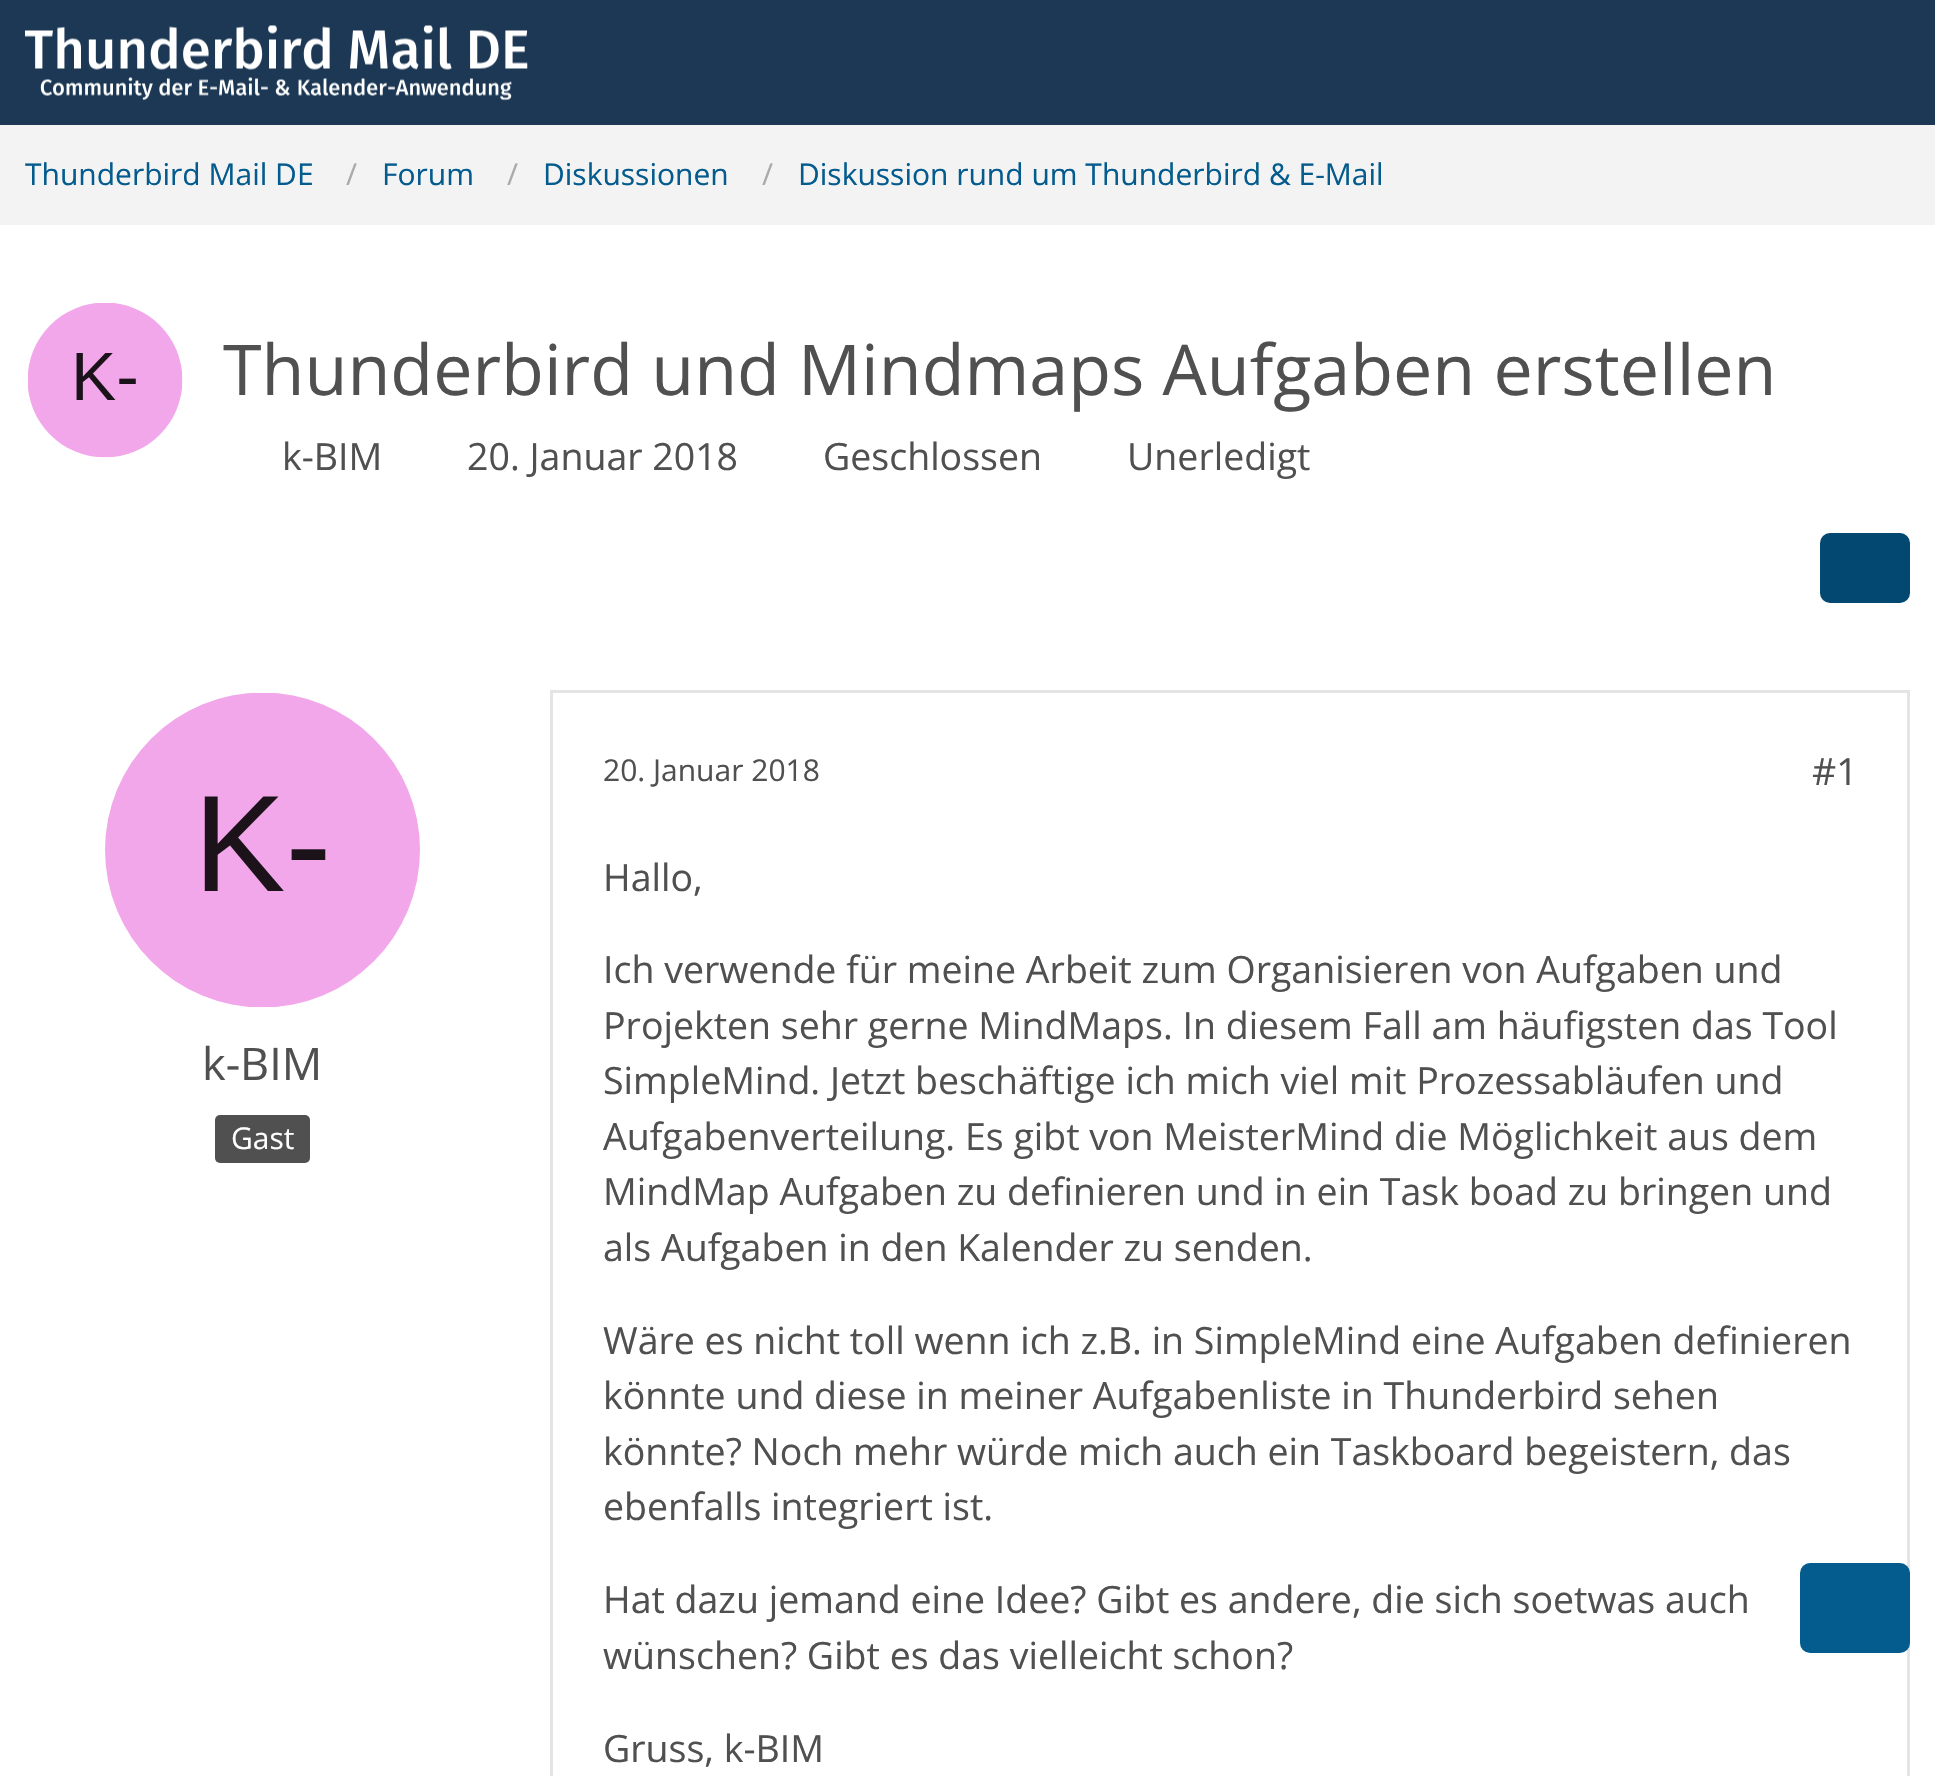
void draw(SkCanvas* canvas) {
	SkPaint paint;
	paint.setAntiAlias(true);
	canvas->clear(0xfff3f3f3);
	paint.setColor(0xff1c3854);
	canvas->drawRect(SkRect::MakeXYWH(0, 0, 1935, 125), paint);
	canvas->drawImageRect(SkImages::DeferredFromEncodedData(SkData::MakeFromFileName("img1.png")), SkRect::MakeXYWH(25, 25, 503, 76), SkSamplingOptions());
	SkFont f1(fontMgr->matchFamilyStyle("Open Sans", SkFontStyle::Normal()), 30);
	f1.setSubpixel(true);
	paint.setColor(0xff045b8d);
	canvas->drawString("Thunderbird Mail DE", 25, 185, f1, paint);
	paint.setColor(0xffaaaaaa);
	canvas->drawString("/", 346, 185, f1, paint);
	paint.setColor(0xff045b8d);
	canvas->drawString("Forum", 382, 185, f1, paint);
	paint.setColor(0xffaaaaaa);
	canvas->drawString("/", 507, 185, f1, paint);
	paint.setColor(0xff045b8d);
	canvas->drawString("Diskussionen", 543, 185, f1, paint);
	paint.setColor(0xffaaaaaa);
	canvas->drawString("/", 762, 185, f1, paint);
	paint.setColor(0xff045b8d);
	canvas->drawString("Diskussion rund um Thunderbird & E-Mail", 798, 185, f1, paint);
	paint.setColor(0xffffffff);
	canvas->drawRect(SkRect::MakeXYWH(0, 225, 1935, 1551), paint);
	canvas->drawImageRect(SkImages::DeferredFromEncodedData(SkData::MakeFromFileName("img2.png")), SkRect::MakeXYWH(28, 303, 155, 155), SkSamplingOptions());
	SkFont f2(fontMgr->matchFamilyStyle("Open Sans", SkFontStyle::Normal()), 70);
	f2.setSubpixel(true);
	paint.setColor(0xff505050);
	canvas->drawString("Thunderbird und Mindmaps Aufgaben erstellen", 223, 395, f2, paint);
	SkFont f3(fontMgr->matchFamilyStyle("Open Sans", SkFontStyle::Normal()), 37.5);
	f3.setSubpixel(true);
	canvas->drawString("k-BIM", 282, 470, f3, paint);
	canvas->drawString("20. Januar 2018", 467, 470, f3, paint);
	canvas->drawString("Geschlossen", 823, 470, f3, paint);
	canvas->drawString("Unerledigt", 1127, 470, f3, paint);
	paint.setColor(0xff024870);
	canvas->drawRoundRect(SkRect::MakeXYWH(1820, 533, 90, 70), 10, 10, paint);
	canvas->drawImageRect(SkImages::DeferredFromEncodedData(SkData::MakeFromFileName("img3.png")), SkRect::MakeXYWH(105, 693, 315, 315), SkSamplingOptions());
	SkFont f4(fontMgr->matchFamilyStyle("Open Sans", SkFontStyle::Normal()), 45);
	f4.setSubpixel(true);
	paint.setColor(0xff505050);
	canvas->drawString("k-BIM", 202, 1080, f4, paint);
	canvas->drawRoundRect(SkRect::MakeXYWH(215, 1115, 95, 48), 5, 5, paint);
	paint.setColor(0xffffffff);
	canvas->drawString("Gast", 231, 1149, f1, paint);
	paint.setStroke(true);
	paint.setStrokeWidth(3);
	paint.setColor(0xffe4e4e4);
	canvas->drawRect(SkRect::MakeXYWH(551.5, 691.5, 1357, 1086), paint);
	paint.setStroke(false);
	paint.setColor(0xff505050);
	canvas->drawString("20. Januar 2018", 603, 781, f1, paint);
	canvas->drawString("#1", 1812, 785, f3, paint);
	canvas->drawString("Hallo,", 603, 891, f3, paint);
	canvas->drawString("Ich verwende für meine Arbeit zum Organisieren von Aufgaben und", 603, 983, f3, paint);
	canvas->drawString("Projekten sehr gerne MindMaps. In diesem Fall am häufigsten das Tool", 603, 1039, f3, paint);
	canvas->drawString("SimpleMind. Jetzt beschäftige ich mich viel mit Prozessabläufen und", 603, 1094, f3, paint);
	canvas->drawString("Aufgabenverteilung. Es gibt von MeisterMind die Möglichkeit aus dem", 603, 1150, f3, paint);
	canvas->drawString("MindMap Aufgaben zu definieren und in ein Task boad zu bringen und", 603, 1205, f3, paint);
	canvas->drawString("als Aufgaben in den Kalender zu senden.", 603, 1261, f3, paint);
	canvas->drawString("Wäre es nicht toll wenn ich z.B. in SimpleMind eine Aufgaben definieren", 603, 1354, f3, paint);
	canvas->drawString("könnte und diese in meiner Aufgabenliste in Thunderbird sehen", 603, 1409, f3, paint);
	canvas->drawString("könnte? Noch mehr würde mich auch ein Taskboard begeistern, das", 603, 1465, f3, paint);
	canvas->drawString("ebenfalls integriert ist.", 603, 1520, f3, paint);
	canvas->drawString("Hat dazu jemand eine Idee? Gibt es andere, die sich soetwas auch", 603, 1613, f3, paint);
	canvas->drawString("wünschen? Gibt es das vielleicht schon?", 603, 1669, f3, paint);
	canvas->drawString("Gruss, k-BIM", 603, 1762, f3, paint);
	paint.setColor(0xff045b8d);
	canvas->drawRoundRect(SkRect::MakeXYWH(1800, 1563, 110, 90), 10, 10, paint);
}
